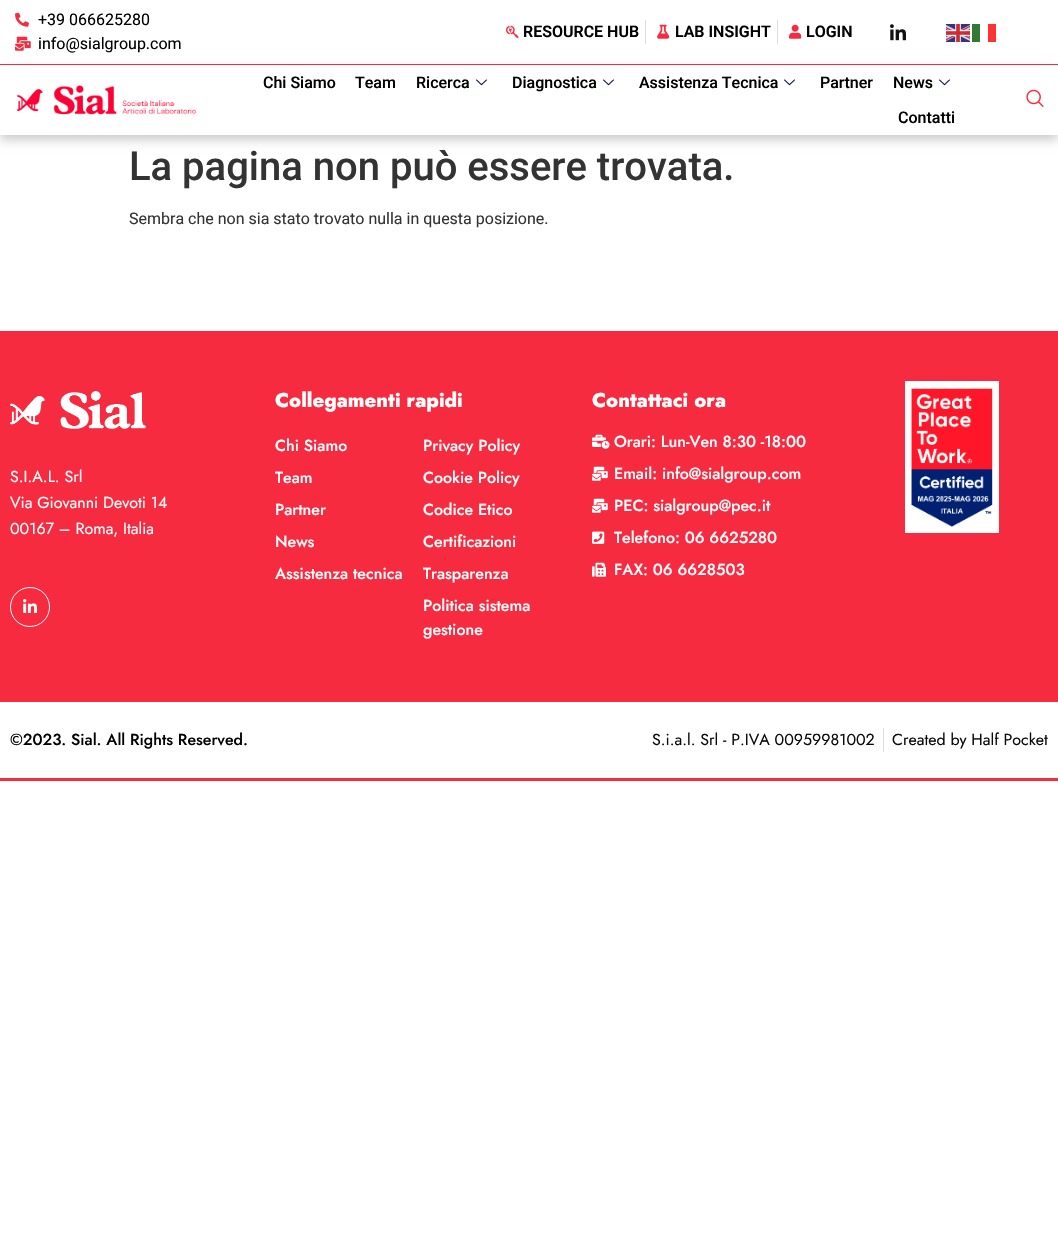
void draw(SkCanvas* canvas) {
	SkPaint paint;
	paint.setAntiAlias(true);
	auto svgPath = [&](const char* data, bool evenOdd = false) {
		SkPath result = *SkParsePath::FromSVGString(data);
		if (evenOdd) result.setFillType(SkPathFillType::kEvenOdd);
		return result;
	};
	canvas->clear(0xffffffff);
	paint.setColor(0xfff72b3f);
	canvas->drawRect(SkRect::MakeXYWH(0, 64, 1058, 1), paint);
	canvas->drawImageRect(SkImages::DeferredFromEncodedData(SkData::MakeFromFileName("img1.png")), SkRect::MakeXYWH(15, 12, 14, 15), SkSamplingOptions());
	SkFont f1(fontMgr->matchFamilyStyle("Roboto", SkFontStyle::Normal()), 16);
	f1.setSubpixel(true);
	paint.setColor(0xff000000);
	canvas->drawString("+39 066625280", 38, 25, f1, paint);
	canvas->drawImageRect(SkImages::DeferredFromEncodedData(SkData::MakeFromFileName("img2.png")), SkRect::MakeXYWH(15, 36, 16, 15), SkSamplingOptions());
	canvas->drawString("info@sialgroup.com", 38, 49, f1, paint);
	canvas->drawImageRect(SkImages::DeferredFromEncodedData(SkData::MakeFromFileName("img3.png")), SkRect::MakeXYWH(506, 25, 13, 14), SkSamplingOptions());
	SkFont f2(fontMgr->matchFamilyStyle("Roboto", SkFontStyle(600, SkFontStyle::kNormal_Width, SkFontStyle::kUpright_Slant)), 16);
	f2.setSubpixel(true);
	canvas->drawString("RESOURCE HUB", 523, 37, f2, paint);
	paint.setColor(0xffdddddd);
	canvas->drawRect(SkRect::MakeXYWH(645, 20, 1, 24), paint);
	canvas->drawImageRect(SkImages::DeferredFromEncodedData(SkData::MakeFromFileName("img4.png")), SkRect::MakeXYWH(657, 24, 13, 15), SkSamplingOptions());
	paint.setColor(0xff000000);
	canvas->drawString("LAB INSIGHT", 675, 37, f2, paint);
	paint.setColor(0xffdddddd);
	canvas->drawRect(SkRect::MakeXYWH(777, 20, 1, 24), paint);
	canvas->drawImageRect(SkImages::DeferredFromEncodedData(SkData::MakeFromFileName("img5.png")), SkRect::MakeXYWH(789, 24, 13, 15), SkSamplingOptions());
	paint.setColor(0xff000000);
	canvas->drawString("LOGIN", 806, 37, f2, paint);
	canvas->drawImageRect(SkImages::DeferredFromEncodedData(SkData::MakeFromFileName("img6.png")), SkRect::MakeXYWH(890, 24, 16, 17), SkSamplingOptions());
	canvas->drawImageRect(SkImages::DeferredFromEncodedData(SkData::MakeFromFileName("img7.png")), SkRect::MakeXYWH(946, 24, 24, 18), SkSamplingOptions());
	paint.setColor(0xff337933);
	canvas->drawRect(SkRect::MakeXYWH(972, 24, 8, 18), paint);
	paint.setColor(0xfffd3333);
	canvas->drawRect(SkRect::MakeXYWH(988, 24, 8, 18), paint);
	canvas->save();
	canvas->clipPath(svgPath("M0 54H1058V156H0ZM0 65H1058V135H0Z", true), true);
	paint.setColor(0x33000000);
	paint.setMaskFilter(SkMaskFilter::MakeBlur(kNormal_SkBlurStyle, 5));
	canvas->drawRect(SkRect::MakeXYWH(0, 70, 1058, 70), paint);
	paint.setMaskFilter(nullptr);
	canvas->restore();
	canvas->drawImageRect(SkImages::DeferredFromEncodedData(SkData::MakeFromFileName("img8.png")), SkRect::MakeXYWH(16, 85, 181, 30), SkSamplingOptions());
	SkFont f3(fontMgr->matchFamilyStyle("Roboto", SkFontStyle(500, SkFontStyle::kNormal_Width, SkFontStyle::kUpright_Slant)), 16);
	f3.setSubpixel(true);
	paint.setColor(0xff000000);
	canvas->drawString("Chi Siamo", 263, 88, f3, paint);
	canvas->drawString("Team", 355, 88, f3, paint);
	canvas->drawString("Ricerca", 416, 88, f3, paint);
	canvas->drawImageRect(SkImages::DeferredFromEncodedData(SkData::MakeFromFileName("img9.png")), SkRect::MakeXYWH(476, 79, 11, 7), SkSamplingOptions());
	canvas->drawString("Diagnostica", 512, 88, f3, paint);
	canvas->drawImageRect(SkImages::DeferredFromEncodedData(SkData::MakeFromFileName("img9.png")), SkRect::MakeXYWH(603, 79, 11, 7), SkSamplingOptions());
	canvas->drawString("Assistenza Tecnica", 639, 88, f3, paint);
	canvas->drawImageRect(SkImages::DeferredFromEncodedData(SkData::MakeFromFileName("img9.png")), SkRect::MakeXYWH(784, 79, 11, 7), SkSamplingOptions());
	canvas->drawString("Partner", 820, 88, f3, paint);
	canvas->drawString("News", 893, 88, f3, paint);
	canvas->drawImageRect(SkImages::DeferredFromEncodedData(SkData::MakeFromFileName("img9.png")), SkRect::MakeXYWH(939, 79, 11, 7), SkSamplingOptions());
	canvas->drawString("Contatti", 898, 123, f3, paint);
	canvas->drawImageRect(SkImages::DeferredFromEncodedData(SkData::MakeFromFileName("img10.png")), SkRect::MakeXYWH(1026, 89, 18, 18), SkSamplingOptions());
	SkFont f4(fontMgr->matchFamilyStyle("Roboto", SkFontStyle(500, SkFontStyle::kNormal_Width, SkFontStyle::kUpright_Slant)), 40);
	f4.setSubpixel(true);
	paint.setColor(0xff333333);
	canvas->drawString("La pagina non può essere trovata.", 129, 180, f4, paint);
	canvas->drawString("Sembra che non sia stato trovato nulla in questa posizione.", 129, 224, f1, paint);
	paint.setColor(0xfff72b3f);
	canvas->drawRect(SkRect::MakeXYWH(0, 331, 1058, 371), paint);
	canvas->drawImageRect(SkImages::DeferredFromEncodedData(SkData::MakeFromFileName("img11.png")), SkRect::MakeXYWH(10, 391, 136, 38), SkSamplingOptions());
	SkFont f5(fontMgr->matchFamilyStyle("Jost", SkFontStyle::Normal()), 16);
	f5.setSubpixel(true);
	paint.setColor(0xffffffff);
	canvas->drawString("S.I.A.L. Srl", 10, 482, f5, paint);
	canvas->drawString("Via Giovanni Devoti 14", 10, 508, f5, paint);
	canvas->drawString("00167 – Roma, Italia", 10, 534, f5, paint);
	paint.setStroke(true);
	paint.setStrokeWidth(1);
	canvas->drawCircle(30, 607, 19.5, paint);
	canvas->drawImageRect(SkImages::DeferredFromEncodedData(SkData::MakeFromFileName("img12.png")), SkRect::MakeXYWH(23, 599, 14, 14), SkSamplingOptions());
	SkFont f6(fontMgr->matchFamilyStyle("Jost", SkFontStyle(800, SkFontStyle::kNormal_Width, SkFontStyle::kUpright_Slant)), 20);
	f6.setSubpixel(true);
	paint.setStroke(false);
	canvas->drawString("Collegamenti rapidi", 275, 407, f6, paint);
	SkFont f7(fontMgr->matchFamilyStyle("Jost", SkFontStyle(500, SkFontStyle::kNormal_Width, SkFontStyle::kUpright_Slant)), 16);
	f7.setSubpixel(true);
	canvas->drawString("Chi Siamo", 275, 451, f7, paint);
	canvas->drawString("Team", 275, 483, f7, paint);
	canvas->drawString("Partner", 275, 515, f7, paint);
	canvas->drawString("News", 275, 547, f7, paint);
	canvas->drawString("Assistenza tecnica", 275, 579, f7, paint);
	canvas->drawString("Privacy Policy", 423, 451, f7, paint);
	canvas->drawString("Cookie Policy", 423, 483, f7, paint);
	canvas->drawString("Codice Etico", 423, 515, f7, paint);
	canvas->drawString("Certificazioni", 423, 547, f7, paint);
	canvas->drawString("Trasparenza", 423, 579, f7, paint);
	canvas->drawString("Politica sistema", 423, 611, f7, paint);
	canvas->drawString("gestione", 423, 635, f7, paint);
	canvas->drawString("Contattaci ora", 592, 407, f6, paint);
	canvas->drawImageRect(SkImages::DeferredFromEncodedData(SkData::MakeFromFileName("img13.png")), SkRect::MakeXYWH(592, 434, 18, 15), SkSamplingOptions());
	canvas->drawString("Orari: Lun-Ven 8:30 -18:00", 614, 447, f7, paint);
	canvas->drawImageRect(SkImages::DeferredFromEncodedData(SkData::MakeFromFileName("img14.png")), SkRect::MakeXYWH(592, 466, 16, 15), SkSamplingOptions());
	canvas->drawString("Email: info@sialgroup.com", 614, 479, f7, paint);
	canvas->drawImageRect(SkImages::DeferredFromEncodedData(SkData::MakeFromFileName("img14.png")), SkRect::MakeXYWH(592, 498, 16, 15), SkSamplingOptions());
	canvas->drawString("PEC: sialgroup@pec.it", 614, 511, f7, paint);
	canvas->drawImageRect(SkImages::DeferredFromEncodedData(SkData::MakeFromFileName("img15.png")), SkRect::MakeXYWH(592, 531, 13, 13), SkSamplingOptions());
	canvas->drawString("Telefono: 06 6625280", 614, 543, f7, paint);
	canvas->drawImageRect(SkImages::DeferredFromEncodedData(SkData::MakeFromFileName("img16.png")), SkRect::MakeXYWH(592, 562, 14, 15), SkSamplingOptions());
	canvas->drawString("FAX: 06 6628503", 614, 575, f7, paint);
	canvas->drawImageRect(SkImages::DeferredFromEncodedData(SkData::MakeFromFileName("img17.png")), SkRect::MakeXYWH(905, 381, 94, 152), SkSamplingOptions());
	paint.setColor(0xfff72b3f);
	canvas->drawRect(SkRect::MakeXYWH(0, 778, 1058, 3), paint);
	paint.setColor(0xff000000);
	canvas->drawString("©2023. Sial. All Rights Reserved.", 10, 745, f7, paint);
	paint.setColor(0xff0a0a0a);
	canvas->drawString("S.i.a.l. Srl - P.IVA 00959981002", 652, 745, f5, paint);
	paint.setColor(0xffdddddd);
	canvas->drawRect(SkRect::MakeXYWH(883, 728, 1, 24), paint);
	paint.setColor(0xff0a0a0a);
	canvas->drawString("Created by Half Pocket", 892, 745, f5, paint);
}
